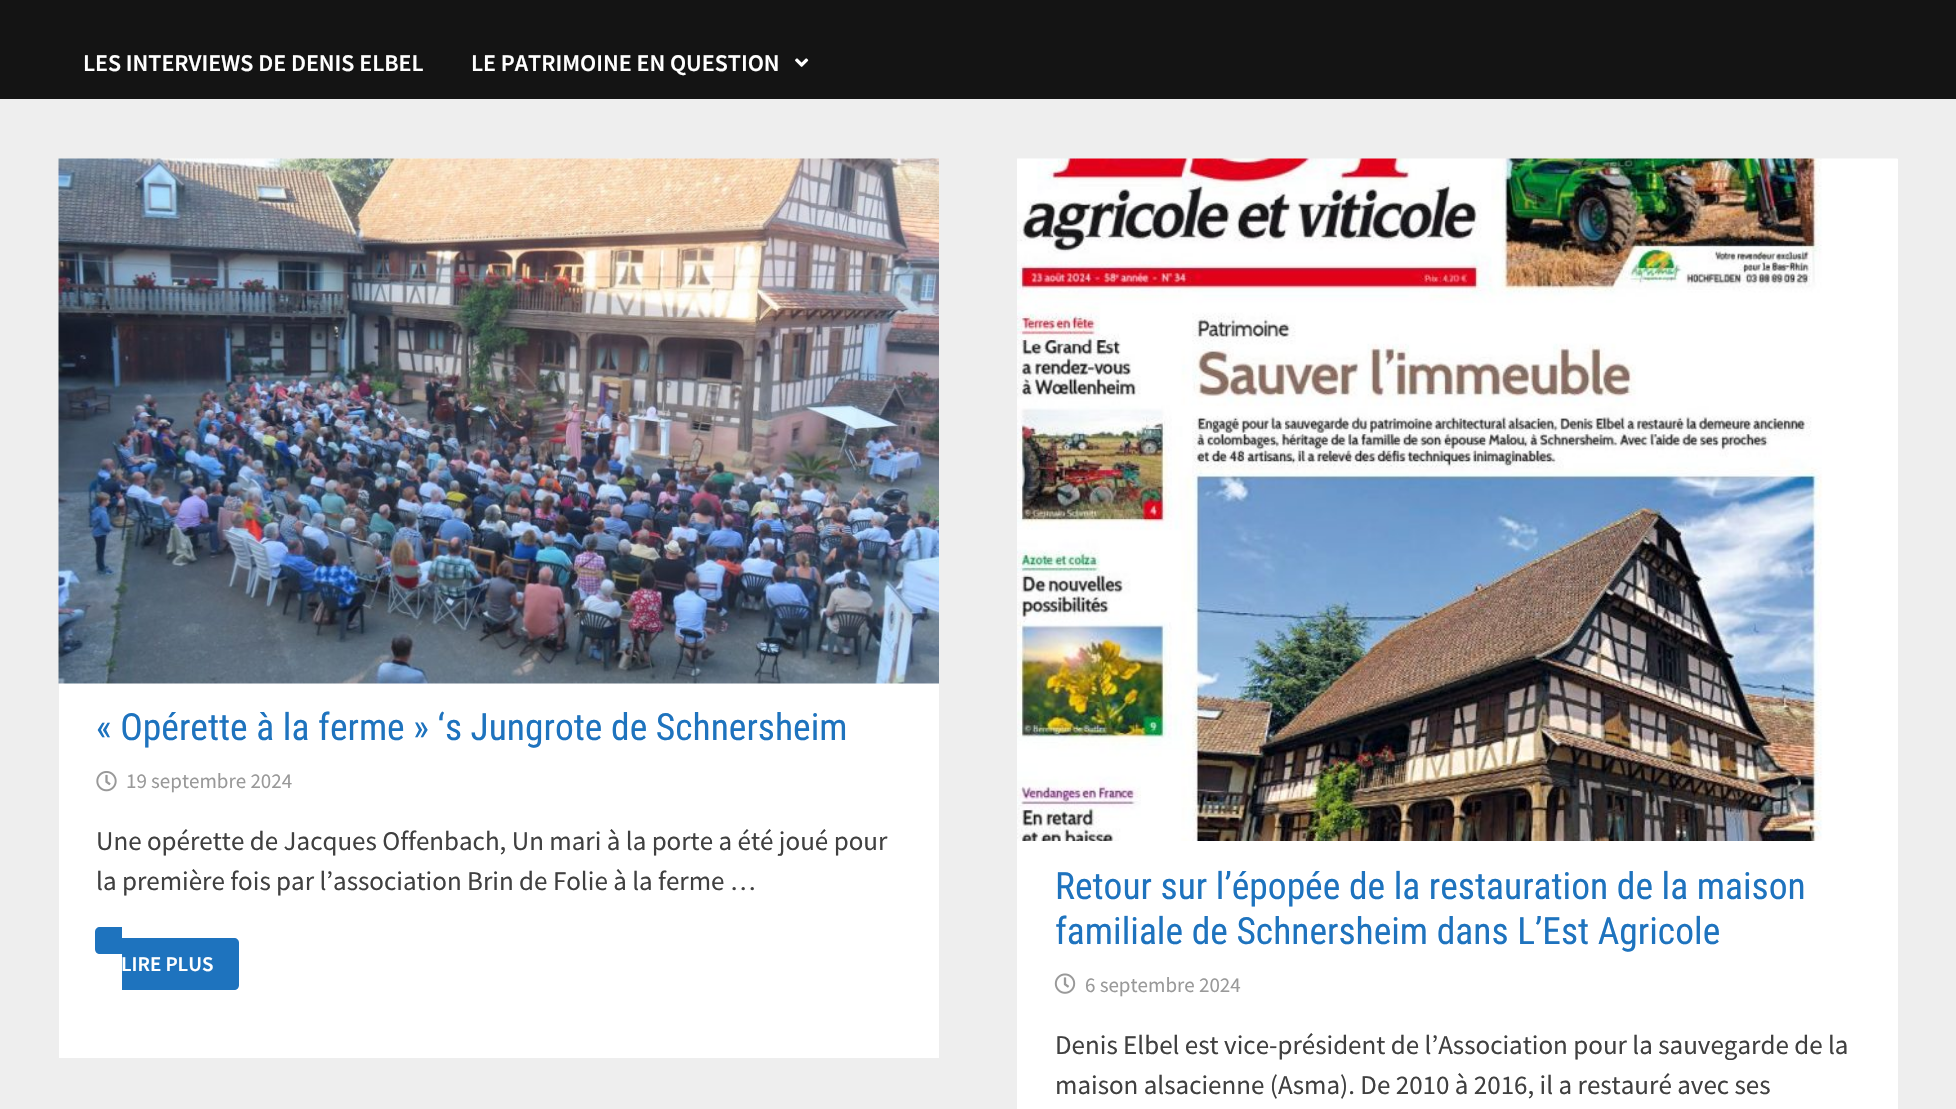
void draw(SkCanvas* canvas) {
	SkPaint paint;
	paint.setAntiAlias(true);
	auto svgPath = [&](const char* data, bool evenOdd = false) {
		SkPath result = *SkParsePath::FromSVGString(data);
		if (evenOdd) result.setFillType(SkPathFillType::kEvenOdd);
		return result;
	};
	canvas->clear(0xffeeeeee);
	paint.setColor(0xff141414);
	canvas->drawRect(SkRect::MakeXYWH(0, 0, 1956, 99), paint);
	SkFont f1(fontMgr->matchFamilyStyle("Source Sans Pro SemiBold", SkFontStyle(600, SkFontStyle::kNormal_Width, SkFontStyle::kUpright_Slant)), 24);
	f1.setSubpixel(true);
	paint.setColor(0xffffffff);
	canvas->drawString("LES INTERVIEWS DE DENIS ELBEL", 83, 71, f1, paint);
	canvas->drawString("LE PATRIMOINE EN QUESTION", 471, 71, f1, paint);
	canvas->drawImageRect(SkImages::DeferredFromEncodedData(SkData::MakeFromFileName("img1.png")), SkRect::MakeXYWH(795, 58, 14, 9), SkSamplingOptions());
	canvas->drawRect(SkRect::MakeXYWH(59, 683, 880, 375), paint);
	canvas->drawImageRect(SkImages::DeferredFromEncodedData(SkData::MakeFromFileName("img2.png")), SkRect::MakeXYWH(58, 158, 881, 526), SkSamplingOptions());
	SkFont f2(fontMgr->matchFamilyStyle("Roboto Condensed", SkFontStyle::Normal()), 37.5);
	f2.setSubpixel(true);
	paint.setColor(0xff1e73be);
	canvas->drawString("« Opérette à la ferme » ‘s Jungrote de Schnersheim", 96, 740, f2, paint);
	canvas->drawImageRect(SkImages::DeferredFromEncodedData(SkData::MakeFromFileName("img3.png")), SkRect::MakeXYWH(96, 771, 21, 21), SkSamplingOptions());
	SkFont f3(fontMgr->matchFamilyStyle("Source Sans Pro", SkFontStyle::Normal()), 21);
	f3.setSubpixel(true);
	paint.setColor(0xff999999);
	canvas->drawString("19 septembre 2024", 126, 788, f3, paint);
	SkFont f4(fontMgr->matchFamilyStyle("Source Sans Pro", SkFontStyle::Normal()), 27);
	f4.setSubpixel(true);
	paint.setColor(0xff404040);
	canvas->drawString("Une opérette de Jacques Offenbach, Un mari à la porte a été joué pour", 96, 850, f4, paint);
	canvas->drawString("la première fois par l’association Brin de Folie à la ferme …", 96, 890, f4, paint);
	paint.setColor(0xff1e73be);
	canvas->drawPath(svgPath("M122 938H234C237 938 239 940 239 943V985C239 988 237 990 234 990H122Z"), paint);
	SkFont f5(fontMgr->matchFamilyStyle("Source Sans Pro SemiBold", SkFontStyle(600, SkFontStyle::kNormal_Width, SkFontStyle::kUpright_Slant)), 21);
	f5.setSubpixel(true);
	paint.setColor(0xffffffff);
	canvas->drawString("LIRE PLUS", 121, 971, f5, paint);
	paint.setColor(0xff1e73be);
	canvas->drawPath(svgPath("M100 927H122V954H100C97 954 95 952 95 949V932C95 929 97 927 100 927Z"), paint);
	paint.setColor(0xffffffff);
	canvas->drawRect(SkRect::MakeXYWH(1017, 159, 881, 950), paint);
	canvas->drawImageRect(SkImages::DeferredFromEncodedData(SkData::MakeFromFileName("img4.png")), SkRect::MakeXYWH(1017, 158, 881, 683), SkSamplingOptions());
	paint.setColor(0xff1e73be);
	canvas->drawString("Retour sur l’épopée de la restauration de la maison", 1055, 899, f2, paint);
	canvas->drawString("familiale de Schnersheim dans L’Est Agricole", 1055, 944, f2, paint);
	canvas->drawImageRect(SkImages::DeferredFromEncodedData(SkData::MakeFromFileName("img5.png")), SkRect::MakeXYWH(1054, 973, 22, 21), SkSamplingOptions());
	paint.setColor(0xff999999);
	canvas->drawString("6 septembre 2024", 1085, 992, f3, paint);
	paint.setColor(0xff404040);
	canvas->drawString("Denis Elbel est vice-président de l’Association pour la sauvegarde de la", 1055, 1054, f4, paint);
	canvas->drawString("maison alsacienne (Asma). De 2010 à 2016, il a restauré avec ses", 1055, 1094, f4, paint);
}
